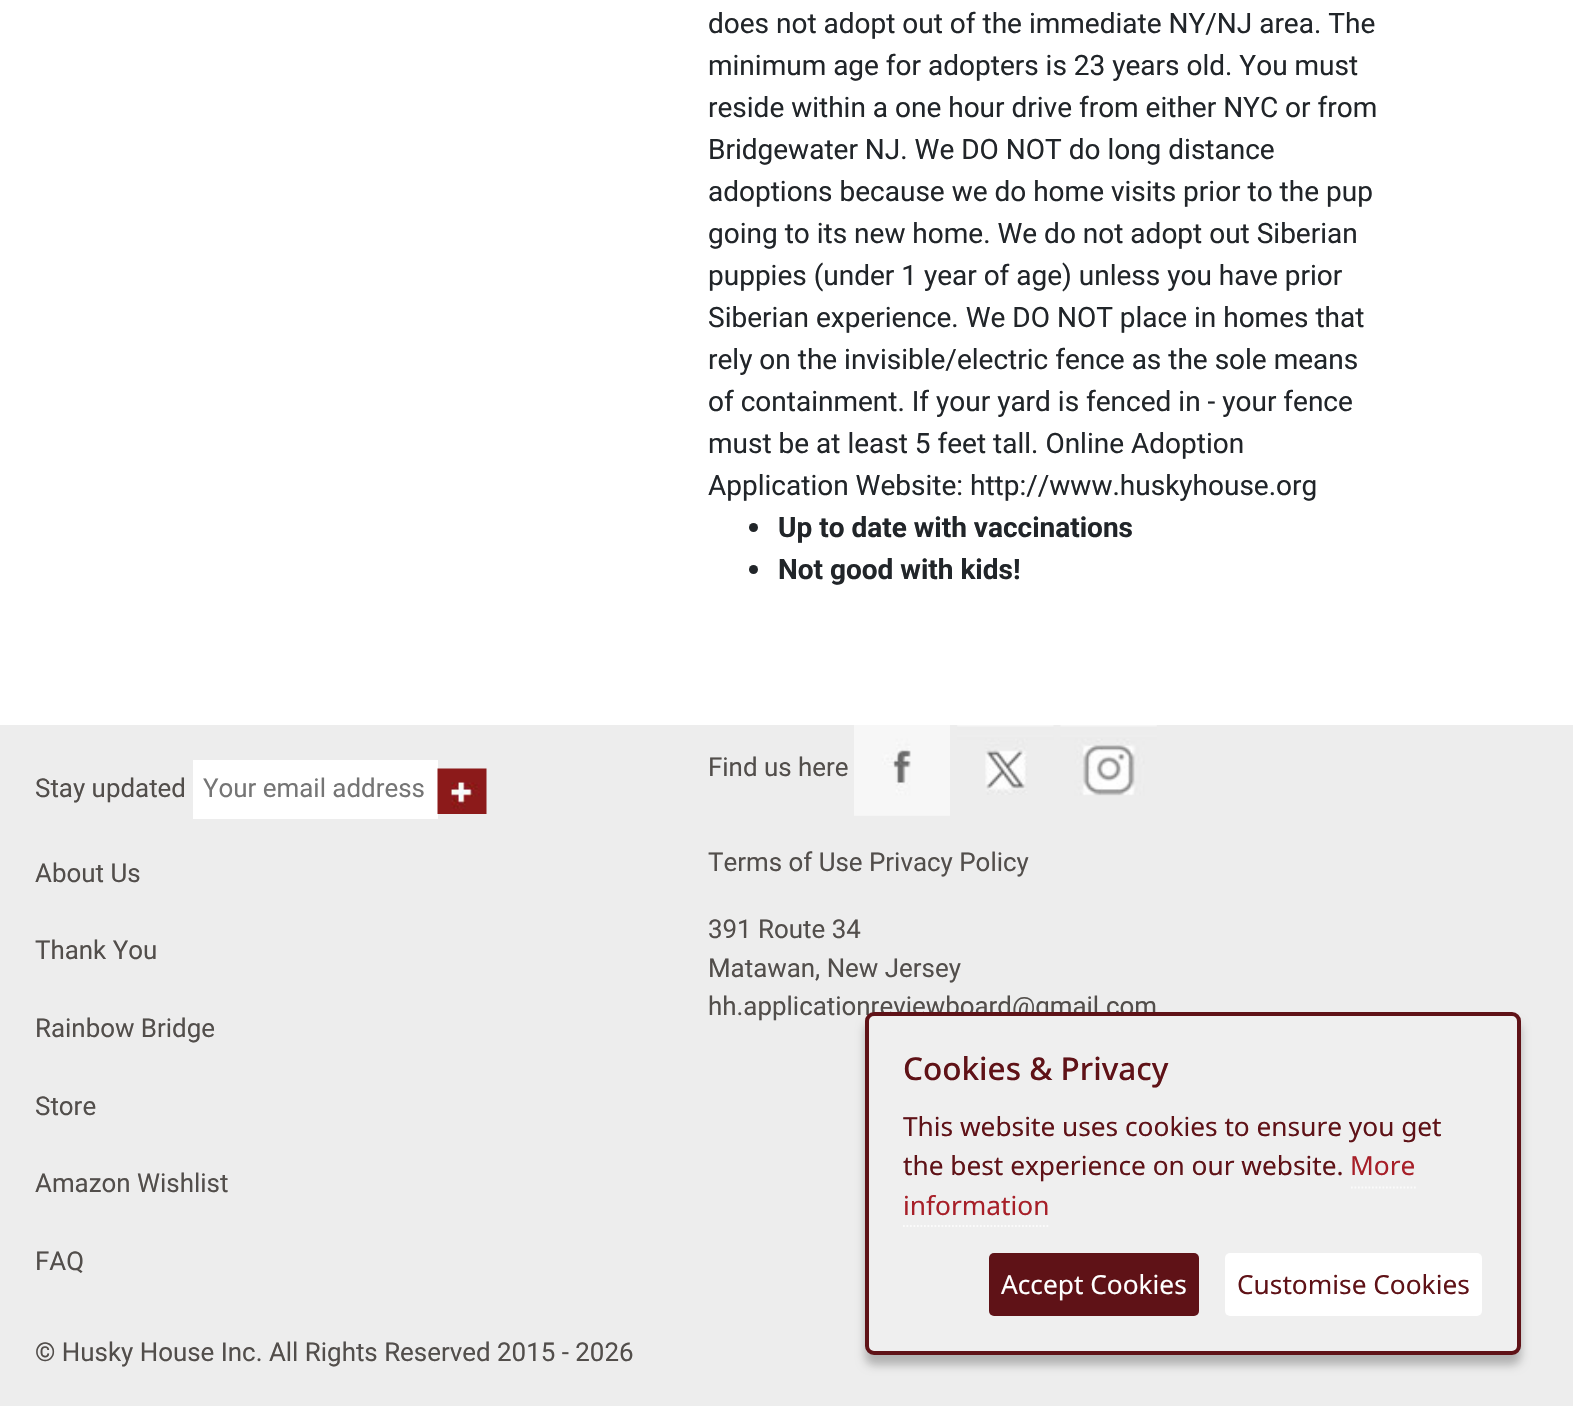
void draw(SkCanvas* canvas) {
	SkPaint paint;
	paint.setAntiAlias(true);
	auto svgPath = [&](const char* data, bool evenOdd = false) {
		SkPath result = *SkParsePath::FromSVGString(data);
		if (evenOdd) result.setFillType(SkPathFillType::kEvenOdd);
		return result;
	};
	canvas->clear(0xffffffff);
	SkFont f1(fontMgr->matchFamilyStyle("Roboto", SkFontStyle::Normal()), 28);
	f1.setSubpixel(true);
	paint.setColor(0xff212529);
	canvas->drawString("does not adopt out of the immediate NY/NJ area. The", 708, 33, f1, paint);
	canvas->drawString("minimum age for adopters is 23 years old. You must", 708, 75, f1, paint);
	canvas->drawString("reside within a one hour drive from either NYC or from", 708, 117, f1, paint);
	canvas->drawString("Bridgewater NJ. We DO NOT do long distance", 708, 159, f1, paint);
	canvas->drawString("adoptions because we do home visits prior to the pup", 708, 201, f1, paint);
	canvas->drawString("going to its new home. We do not adopt out Siberian", 708, 243, f1, paint);
	canvas->drawString("puppies (under 1 year of age) unless you have prior", 708, 285, f1, paint);
	canvas->drawString("Siberian experience. We DO NOT place in homes that", 708, 327, f1, paint);
	canvas->drawString("rely on the invisible/electric fence as the sole means", 708, 369, f1, paint);
	canvas->drawString("of containment. If your yard is fenced in - your fence", 708, 411, f1, paint);
	canvas->drawString("must be at least 5 feet tall. Online Adoption", 708, 453, f1, paint);
	canvas->drawString("Application Website: http://www.huskyhouse.org", 708, 495, f1, paint);
	canvas->drawCircle(753.5, 527.5, 4.5, paint);
	SkFont f2(fontMgr->matchFamilyStyle("Roboto", SkFontStyle::Bold()), 28);
	f2.setSubpixel(true);
	canvas->drawString("Up to date with vaccinations", 778, 537, f2, paint);
	canvas->drawCircle(753.5, 569.5, 4.5, paint);
	canvas->drawString("Not good with kids!", 778, 579, f2, paint);
	paint.setColor(0xffededed);
	canvas->drawRect(SkRect::MakeXYWH(0, 725, 1573, 681), paint);
	SkFont f3(fontMgr->matchFamilyStyle("Roboto", SkFontStyle::Normal()), 25.9);
	f3.setSubpixel(true);
	paint.setColor(0xff524e4b);
	canvas->drawString("Stay updated", 35, 797, f3, paint);
	paint.setColor(0xffffffff);
	canvas->drawRect(SkRect::MakeXYWH(193, 760, 245, 59), paint);
	paint.setColor(0xff757575);
	canvas->drawString("Your email address", 203, 797, f3, paint);
	canvas->drawImageRect(SkImages::DeferredFromEncodedData(SkData::MakeFromFileName("img1.png")), SkRect::MakeXYWH(437, 768, 50, 46), SkSamplingOptions());
	paint.setColor(0xff524e4b);
	canvas->drawString("About Us", 35, 882, f3, paint);
	canvas->drawString("Thank You", 35, 959, f3, paint);
	canvas->drawString("Rainbow Bridge", 35, 1037, f3, paint);
	canvas->drawString("Store", 35, 1115, f3, paint);
	canvas->drawString("Amazon Wishlist", 35, 1192, f3, paint);
	canvas->drawString("FAQ", 35, 1270, f3, paint);
	canvas->drawString("© Husky House Inc. All Rights Reserved 2015 - 2026", 35, 1361, f3, paint);
	canvas->drawString("Find us here", 708, 776, f3, paint);
	canvas->drawImageRect(SkImages::DeferredFromEncodedData(SkData::MakeFromFileName("img2.png")), SkRect::MakeXYWH(854, 725, 96, 91), SkSamplingOptions());
	canvas->drawImageRect(SkImages::DeferredFromEncodedData(SkData::MakeFromFileName("img3.png")), SkRect::MakeXYWH(957, 725, 97, 70), SkSamplingOptions());
	canvas->drawImageRect(SkImages::DeferredFromEncodedData(SkData::MakeFromFileName("img4.png")), SkRect::MakeXYWH(1060, 725, 97, 71), SkSamplingOptions());
	canvas->drawString("Terms of Use Privacy Policy", 708, 871, f3, paint);
	canvas->drawString("391 Route 34", 708, 938, f3, paint);
	canvas->drawString("Matawan, New Jersey", 708, 977, f3, paint);
	canvas->drawString("hh.applicationreviewboard@gmail.com", 708, 1015, f3, paint);
	paint.setColor(0x40000000);
	paint.setMaskFilter(SkMaskFilter::MakeBlur(kNormal_SkBlurStyle, 5));
	canvas->drawRoundRect(SkRect::MakeXYWH(865, 1022, 656, 343), 9, 9, paint);
	paint.setMaskFilter(nullptr);
	paint.setColor(0xffefefef);
	canvas->drawRoundRect(SkRect::MakeXYWH(867, 1014, 652, 339), 7, 7, paint);
	paint.setStroke(true);
	paint.setStrokeWidth(4);
	paint.setColor(0xff5f1217);
	canvas->drawRoundRect(SkRect::MakeXYWH(867, 1014, 652, 339), 7, 7, paint);
	SkFont f4(fontMgr->matchFamilyStyle("Noto Sans", SkFontStyle(500, SkFontStyle::kNormal_Width, SkFontStyle::kUpright_Slant)), 31.5);
	f4.setSubpixel(true);
	paint.setStroke(false);
	canvas->drawString("Cookies & Privacy", 903, 1080, f4, paint);
	SkFont f5(fontMgr->matchFamilyStyle("Noto Sans", SkFontStyle::Normal()), 26.25);
	f5.setSubpixel(true);
	canvas->drawString("This website uses cookies to ensure you get", 903, 1136, f5, paint);
	canvas->drawString("the best experience on our website.", 903, 1175, f5, paint);
	paint.setColor(0xffa71f28);
	canvas->drawString("More", 1350, 1175, f5, paint);
	paint.setStroke(true);
	paint.setStrokeWidth(1.8);
	paint.setColor(0xfffbfbfb);
	paint.setPathEffect(SkDashPathEffect::Make({{1.75f, 1.75f}}, 0));
	canvas->drawPath(svgPath("M1351 1187.5H1416"), paint);
	paint.setPathEffect(nullptr);
	paint.setStroke(false);
	paint.setColor(0xffa71f28);
	canvas->drawString("information", 903, 1215, f5, paint);
	paint.setStroke(true);
	paint.setColor(0xfffbfbfb);
	paint.setPathEffect(SkDashPathEffect::Make({{1.75f, 1.75f}}, 0));
	canvas->drawPath(svgPath("M903 1226H1050"), paint);
	paint.setPathEffect(nullptr);
	paint.setStroke(false);
	paint.setColor(0xff5f1217);
	canvas->drawRoundRect(SkRect::MakeXYWH(989, 1253, 210, 63), 5, 5, paint);
	paint.setColor(0xffffffff);
	canvas->drawString("Accept Cookies", 1001, 1294, f5, paint);
	canvas->drawRoundRect(SkRect::MakeXYWH(1225, 1253, 257, 63), 5, 5, paint);
	paint.setColor(0xff5f1217);
	canvas->drawString("Customise Cookies", 1237, 1294, f5, paint);
}
